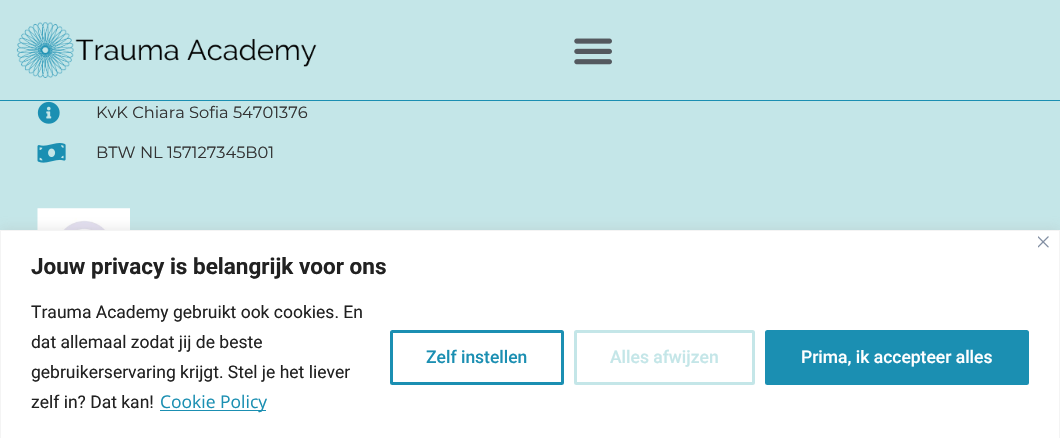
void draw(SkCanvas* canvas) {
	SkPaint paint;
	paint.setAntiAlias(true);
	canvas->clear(0xffc4e6e8);
	paint.setColor(0xff1b8fb2);
	canvas->drawRect(SkRect::MakeXYWH(0, 100, 1060, 1), paint);
	canvas->drawImageRect(SkImages::DeferredFromEncodedData(SkData::MakeFromFileName("img1.png")), SkRect::MakeXYWH(16, 22, 301, 56), SkSamplingOptions());
	canvas->drawImageRect(SkImages::DeferredFromEncodedData(SkData::MakeFromFileName("img2.png")), SkRect::MakeXYWH(574, 38, 38, 27), SkSamplingOptions());
	canvas->drawImageRect(SkImages::DeferredFromEncodedData(SkData::MakeFromFileName("img3.png")), SkRect::MakeXYWH(37, 101, 23, 23), SkSamplingOptions());
	SkFont f1(fontMgr->matchFamilyStyle("Montserrat", SkFontStyle::Normal()), 16.25);
	f1.setSubpixel(true);
	paint.setColor(0xff333333);
	canvas->drawString("KvK Chiara Sofia 54701376", 96, 118, f1, paint);
	canvas->drawImageRect(SkImages::DeferredFromEncodedData(SkData::MakeFromFileName("img4.png")), SkRect::MakeXYWH(37, 143, 29, 20), SkSamplingOptions());
	canvas->drawString("BTW NL 157127345B01", 96, 158, f1, paint);
	canvas->drawImageRect(SkImages::DeferredFromEncodedData(SkData::MakeFromFileName("img5.png")), SkRect::MakeXYWH(37, 208, 93, 22), SkSamplingOptions());
	paint.setColor(0x4dacabab);
	paint.setMaskFilter(SkMaskFilter::MakeBlur(kNormal_SkBlurStyle, 6));
	canvas->drawRect(SkRect::MakeXYWH(0, 229, 1060, 209), paint);
	paint.setMaskFilter(nullptr);
	paint.setColor(0xffffffff);
	canvas->drawRect(SkRect::MakeXYWH(0.5, 230.5, 1059, 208), paint);
	paint.setStroke(true);
	paint.setStrokeWidth(1);
	paint.setColor(0xfff4f4f4);
	canvas->drawRect(SkRect::MakeXYWH(0.5, 230.5, 1059, 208), paint);
	canvas->drawImageRect(SkImages::DeferredFromEncodedData(SkData::MakeFromFileName("img6.png")), SkRect::MakeXYWH(1038, 236, 11, 12), SkSamplingOptions());
	SkFont f2(fontMgr->matchFamilyStyle("Roboto", SkFontStyle::Bold()), 22.5);
	f2.setSubpixel(true);
	paint.setStroke(false);
	paint.setColor(0xff212121);
	canvas->drawString("Jouw privacy is belangrijk voor ons", 31, 274, f2, paint);
	SkFont f3(fontMgr->matchFamilyStyle("Roboto", SkFontStyle::Normal()), 17.5);
	f3.setSubpixel(true);
	canvas->drawString("Trauma Academy gebruikt ook cookies. En", 31, 318, f3, paint);
	canvas->drawString("dat allemaal zodat jij de beste", 31, 348, f3, paint);
	canvas->drawString("gebruikerservaring krijgt. Stel je het liever", 31, 378, f3, paint);
	canvas->drawString("zelf in? Dat kan!", 31, 408, f3, paint);
	paint.setColor(0xff1b8fb2);
	canvas->drawRect(SkRect::MakeXYWH(160, 410, 106, 1), paint);
	SkFont f4(fontMgr->matchFamilyStyle("Open Sans", SkFontStyle::Normal()), 17.5);
	f4.setSubpixel(true);
	canvas->drawString("Cookie Policy", 160, 408, f4, paint);
	paint.setStroke(true);
	paint.setStrokeWidth(3);
	canvas->drawRoundRect(SkRect::MakeXYWH(391.5, 331.5, 171, 52), 1, 1, paint);
	SkFont f5(fontMgr->matchFamilyStyle("Roboto", SkFontStyle(500, SkFontStyle::kNormal_Width, SkFontStyle::kUpright_Slant)), 17.5);
	f5.setSubpixel(true);
	paint.setStroke(false);
	canvas->drawString("Zelf instellen", 426, 363, f5, paint);
	paint.setStroke(true);
	paint.setColor(0xffc4e6e8);
	canvas->drawRoundRect(SkRect::MakeXYWH(575.5, 331.5, 178, 52), 1, 1, paint);
	paint.setStroke(false);
	canvas->drawString("Alles afwijzen", 610, 363, f5, paint);
	paint.setColor(0xff1b8fb2);
	canvas->drawRoundRect(SkRect::MakeXYWH(766.5, 331.5, 261, 52), 1, 1, paint);
	paint.setStroke(true);
	canvas->drawRoundRect(SkRect::MakeXYWH(766.5, 331.5, 261, 52), 1, 1, paint);
	paint.setStroke(false);
	paint.setColor(0xffffffff);
	canvas->drawString("Prima, ik accepteer alles", 801, 363, f5, paint);
}
